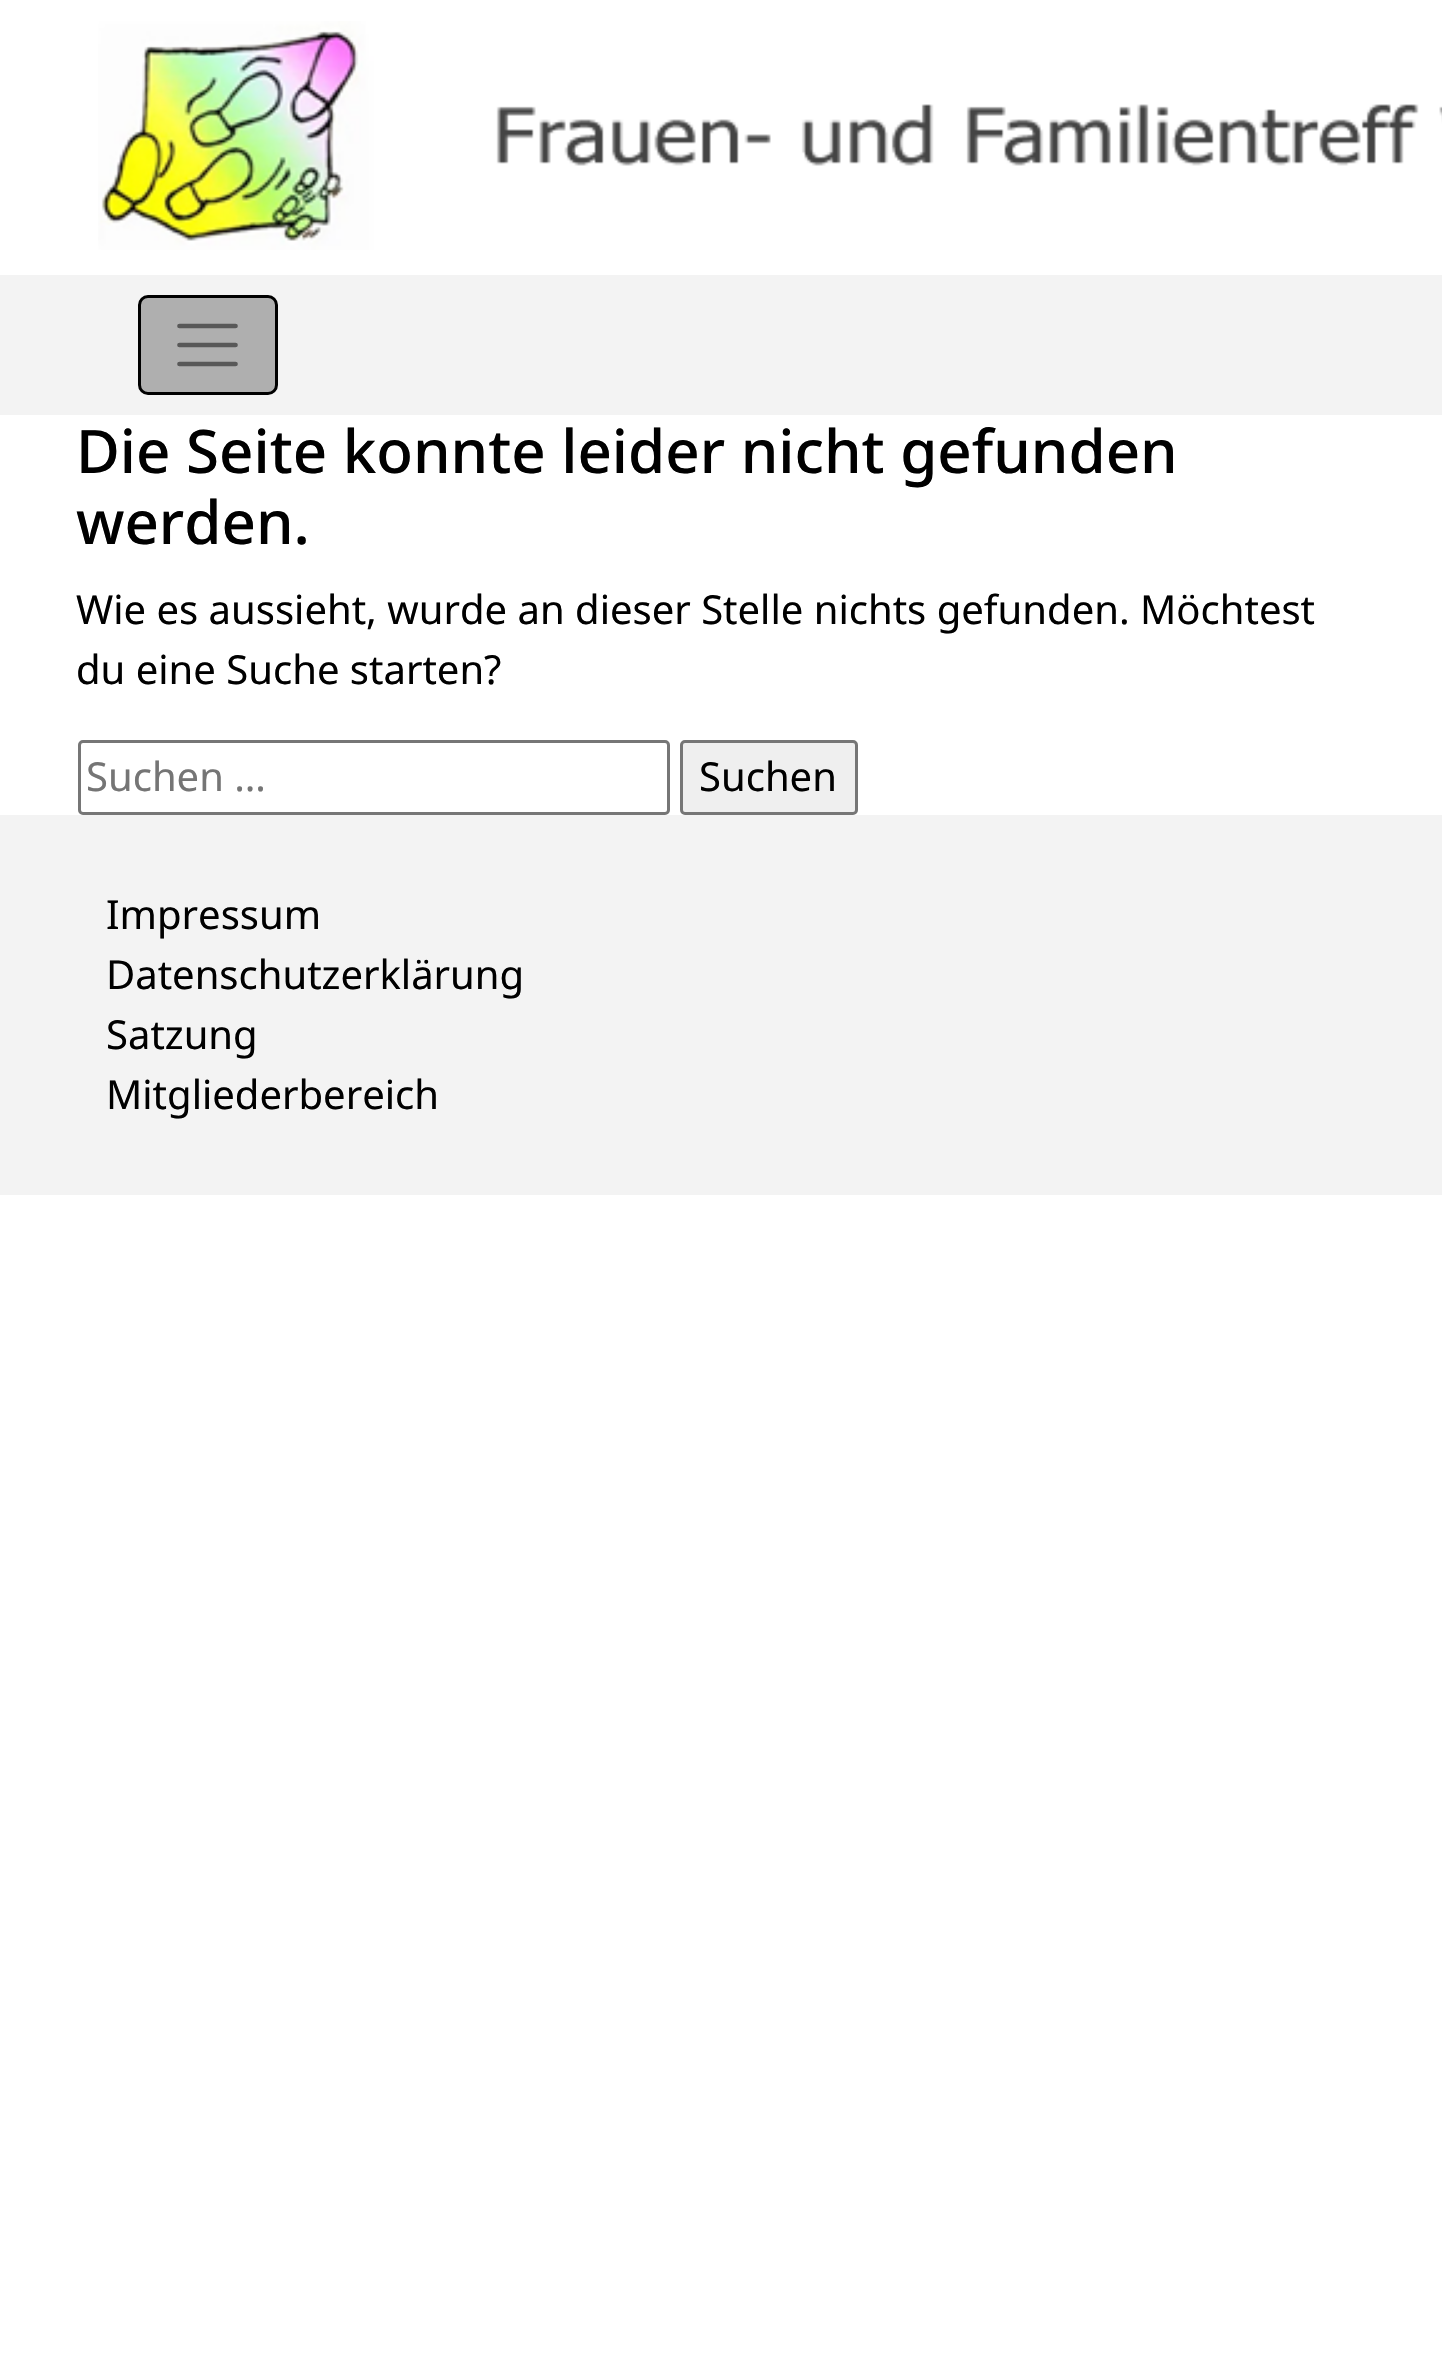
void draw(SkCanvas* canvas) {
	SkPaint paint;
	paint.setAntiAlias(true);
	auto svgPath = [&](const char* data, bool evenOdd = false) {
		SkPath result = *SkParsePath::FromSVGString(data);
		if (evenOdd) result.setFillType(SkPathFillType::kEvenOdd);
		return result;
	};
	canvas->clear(0xffffffff);
	canvas->drawImageRect(SkImages::DeferredFromEncodedData(SkData::MakeFromFileName("img1.png")), SkRect::MakeXYWH(98, 21, 1344, 229), SkSamplingOptions());
	paint.setColor(0xfff3f3f3);
	canvas->drawRect(SkRect::MakeXYWH(0, 275, 1442, 140), paint);
	paint.setColor(0xffafafaf);
	canvas->drawRoundRect(SkRect::MakeXYWH(139.5, 296.5, 137, 97), 8.5, 8.5, paint);
	paint.setStroke(true);
	paint.setStrokeWidth(3);
	paint.setColor(0xff000000);
	canvas->drawRoundRect(SkRect::MakeXYWH(139.5, 296.5, 137, 97), 8.5, 8.5, paint);
	paint.setStrokeWidth(4.7);
	paint.setStrokeCap(SkPaint::kRound_Cap);
	paint.setColor(0xff585858);
	canvas->drawPath(svgPath("M179.5 326H235.5M179.5 345H235.5M179.5 364H235.5"), paint);
	SkFont f1(fontMgr->matchFamilyStyle("Noto Sans", SkFontStyle(500, SkFontStyle::kNormal_Width, SkFontStyle::kUpright_Slant)), 60);
	f1.setSubpixel(true);
	paint.setStroke(false);
	paint.setColor(0xff000000);
	canvas->drawString("Die Seite konnte leider nicht gefunden", 76, 473, f1, paint);
	canvas->drawString("werden.", 76, 544, f1, paint);
	SkFont f2(fontMgr->matchFamilyStyle("Noto Sans", SkFontStyle::Normal()), 40);
	f2.setSubpixel(true);
	canvas->drawString("Wie es aussieht, wurde an dieser Stelle nichts gefunden. Möchtest", 76, 624, f2, paint);
	canvas->drawString("du eine Suche starten?", 76, 684, f2, paint);
	paint.setStroke(true);
	paint.setStrokeWidth(3);
	paint.setStrokeCap(SkPaint::kButt_Cap);
	paint.setColor(0xff767676);
	canvas->drawRoundRect(SkRect::MakeXYWH(79.5, 741.5, 589, 72), 3.5, 3.5, paint);
	paint.setStroke(false);
	paint.setColor(0xff757575);
	canvas->drawString("Suchen …", 86, 791, f2, paint);
	paint.setColor(0xffefefef);
	canvas->drawRoundRect(SkRect::MakeXYWH(681.5, 741.5, 175, 72), 3.5, 3.5, paint);
	paint.setStroke(true);
	paint.setColor(0xff767676);
	canvas->drawRoundRect(SkRect::MakeXYWH(681.5, 741.5, 175, 72), 3.5, 3.5, paint);
	paint.setStroke(false);
	paint.setColor(0xff000000);
	canvas->drawString("Suchen", 699, 791, f2, paint);
	paint.setColor(0xfff3f3f3);
	canvas->drawRect(SkRect::MakeXYWH(0, 815, 1442, 380), paint);
	paint.setColor(0xff000000);
	canvas->drawString("Impressum", 106, 929, f2, paint);
	canvas->drawString("Datenschutzerklärung", 106, 989, f2, paint);
	canvas->drawString("Satzung", 106, 1049, f2, paint);
	canvas->drawString("Mitgliederbereich", 106, 1109, f2, paint);
}
